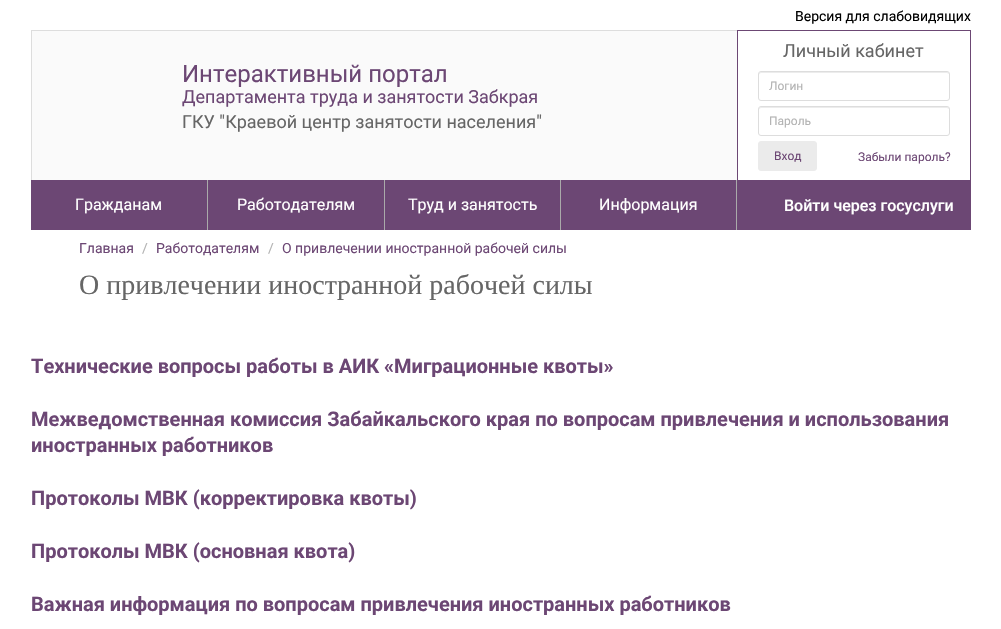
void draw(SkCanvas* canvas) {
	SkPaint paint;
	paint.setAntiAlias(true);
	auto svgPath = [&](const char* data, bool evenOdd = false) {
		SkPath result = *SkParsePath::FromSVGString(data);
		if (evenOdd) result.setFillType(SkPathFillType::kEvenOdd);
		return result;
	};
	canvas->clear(0xffffffff);
	SkFont f1(fontMgr->matchFamilyStyle("Roboto", SkFontStyle::Normal()), 14);
	f1.setSubpixel(true);
	paint.setColor(0xff000000);
	canvas->drawString("Версия для слабовидящих", 795, 21, f1, paint);
	paint.setColor(0xfffafafa);
	canvas->drawRect(SkRect::MakeXYWH(32, 31, 705, 149), paint);
	paint.setColor(0xffdddddd);
	canvas->drawRect(SkRect::MakeXYWH(31, 30, 706, 1), paint);
	canvas->drawRect(SkRect::MakeXYWH(31, 30, 1, 150), paint);
	SkFont f2(fontMgr->matchFamilyStyle("Roboto", SkFontStyle::Normal()), 24);
	f2.setSubpixel(true);
	paint.setColor(0xff6c4774);
	canvas->drawString("Интерактивный портал", 182, 82, f2, paint);
	SkFont f3(fontMgr->matchFamilyStyle("Roboto", SkFontStyle::Normal()), 18);
	f3.setSubpixel(true);
	canvas->drawString("Департамента труда и занятости Забкрая", 182, 103, f3, paint);
	paint.setColor(0xff666666);
	canvas->drawString("ГКУ \"Краевой центр занятости населения\"", 182, 128, f3, paint);
	paint.setColor(0xff6c4774);
	canvas->drawRect(SkRect::MakeXYWH(31, 180, 705, 50), paint);
	SkFont f4(fontMgr->matchFamilyStyle("Roboto", SkFontStyle::Normal()), 16);
	f4.setSubpixel(true);
	paint.setColor(0xffffffff);
	canvas->drawString("Гражданам", 75, 210, f4, paint);
	paint.setColor(0xffaaaaaa);
	canvas->drawRect(SkRect::MakeXYWH(207, 180, 1, 50), paint);
	paint.setColor(0xffffffff);
	canvas->drawString("Работодателям", 237, 210, f4, paint);
	paint.setColor(0xffaaaaaa);
	canvas->drawRect(SkRect::MakeXYWH(384, 180, 1, 50), paint);
	paint.setColor(0xffffffff);
	canvas->drawString("Труд и занятость", 408, 210, f4, paint);
	paint.setColor(0xffaaaaaa);
	canvas->drawRect(SkRect::MakeXYWH(736, 180, 1, 50), paint);
	canvas->drawRect(SkRect::MakeXYWH(560, 180, 1, 50), paint);
	paint.setColor(0xffffffff);
	canvas->drawString("Информация", 599, 210, f4, paint);
	paint.setColor(0xff6c4774);
	canvas->drawRect(SkRect::MakeXYWH(737, 30, 234, 1), paint);
	canvas->drawRect(SkRect::MakeXYWH(970, 30, 1, 150), paint);
	canvas->drawRect(SkRect::MakeXYWH(737, 30, 1, 150), paint);
	paint.setColor(0xff666666);
	canvas->drawString("Личный кабинет", 783, 57, f3, paint);
	paint.setColor(0xffececec);
	canvas->drawPath(svgPath("M761 73H947L949 74V75V74C949 73 948 72 947 72H761C760 72 759 73 759 74V75C759 74 760 73 761 73Z"), paint);
	paint.setStroke(true);
	paint.setStrokeWidth(1);
	paint.setColor(0xffdddddd);
	canvas->drawRoundRect(SkRect::MakeXYWH(758.5, 71.5, 191, 29), 2.5, 2.5, paint);
	SkFont f5(fontMgr->matchFamilyStyle("Roboto", SkFontStyle::Normal()), 12);
	f5.setSubpixel(true);
	paint.setStroke(false);
	paint.setColor(0xffb3b3b3);
	canvas->drawString("Логин", 769, 90, f5, paint);
	paint.setColor(0xffececec);
	canvas->drawPath(svgPath("M761 108H947L949 109V110V109C949 108 948 107 947 107H761C760 107 759 108 759 109V110C759 109 760 108 761 108Z"), paint);
	paint.setStroke(true);
	paint.setColor(0xffdddddd);
	canvas->drawRoundRect(SkRect::MakeXYWH(758.5, 106.5, 191, 29), 2.5, 2.5, paint);
	paint.setStroke(false);
	paint.setColor(0xffb3b3b3);
	canvas->drawString("Пароль", 769, 125, f5, paint);
	paint.setColor(0xffebebeb);
	canvas->drawRoundRect(SkRect::MakeXYWH(758.5, 141.5, 58, 29), 2.5, 2.5, paint);
	paint.setStroke(true);
	canvas->drawRoundRect(SkRect::MakeXYWH(758.5, 141.5, 58, 29), 2.5, 2.5, paint);
	paint.setStroke(false);
	paint.setColor(0xff6c4774);
	canvas->drawString("Вход", 774, 160, f5, paint);
	canvas->drawString("Забыли пароль?", 858, 161, f5, paint);
	canvas->drawRect(SkRect::MakeXYWH(737, 180, 234, 50), paint);
	SkFont f6(fontMgr->matchFamilyStyle("Roboto", SkFontStyle(500, SkFontStyle::kNormal_Width, SkFontStyle::kUpright_Slant)), 16);
	f6.setSubpixel(true);
	paint.setColor(0xffffffff);
	canvas->drawString("Войти через госуслуги", 784, 211, f6, paint);
	paint.setColor(0xff6c4774);
	canvas->drawString("Главная", 79, 253, f1, paint);
	paint.setColor(0xffb3b3b3);
	canvas->drawString("/", 142, 253, f1, paint);
	paint.setColor(0xff6c4774);
	canvas->drawString("Работодателям", 156, 253, f1, paint);
	paint.setColor(0xffb3b3b3);
	canvas->drawString("/", 268, 253, f1, paint);
	paint.setColor(0xff6c4774);
	canvas->drawString("О привлечении иностранной рабочей силы", 282, 253, f1, paint);
	SkFont f7(fontMgr->matchFamilyStyle("Liberation Serif", SkFontStyle::Normal()), 28);
	f7.setSubpixel(true);
	paint.setColor(0xff666666);
	canvas->drawString("О привлечении иностранной рабочей силы", 79, 294, f7, paint);
	SkFont f8(fontMgr->matchFamilyStyle("Roboto", SkFontStyle::Bold()), 20);
	f8.setSubpixel(true);
	paint.setColor(0xff6c4774);
	canvas->drawString("Технические вопросы работы в АИК «Миграционные квоты»", 31, 373, f8, paint);
	canvas->drawString("Межведомственная комиссия Забайкальского края по вопросам привлечения и использования", 31, 426, f8, paint);
	canvas->drawString("иностранных работников", 31, 452, f8, paint);
	canvas->drawString("Протоколы МВК (корректировка квоты)", 31, 505, f8, paint);
	canvas->drawString("Протоколы МВК (основная квота)", 31, 558, f8, paint);
	canvas->drawString("Важная информация по вопросам привлечения иностранных работников", 31, 611, f8, paint);
}
